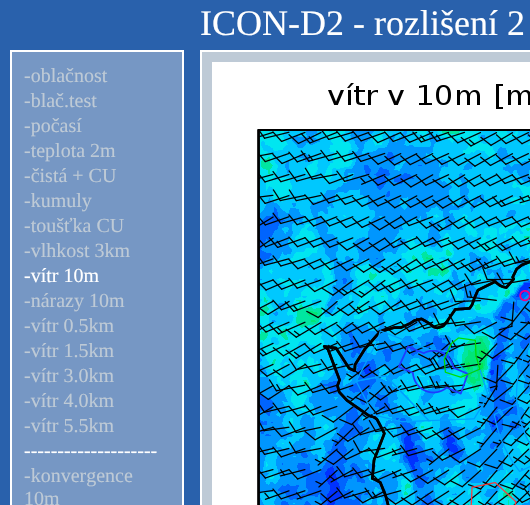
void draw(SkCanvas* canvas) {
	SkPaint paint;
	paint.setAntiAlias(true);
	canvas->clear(0xff2961ac);
	SkFont f1(fontMgr->matchFamilyStyle("Liberation Serif", SkFontStyle::Normal()), 36);
	f1.setSubpixel(true);
	paint.setColor(0xffffffff);
	canvas->drawString("ICON-D2 - rozlišení 2", 200, 35, f1, paint);
	paint.setColor(0xff7697c4);
	canvas->drawRect(SkRect::MakeXYWH(11, 51, 172, 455), paint);
	paint.setStroke(true);
	paint.setStrokeWidth(2);
	paint.setColor(0xffffffff);
	canvas->drawRect(SkRect::MakeXYWH(11, 51, 172, 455), paint);
	SkFont f2(fontMgr->matchFamilyStyle("Liberation Serif", SkFontStyle::Normal()), 20);
	f2.setSubpixel(true);
	paint.setStroke(false);
	paint.setColor(0xffbecad6);
	canvas->drawString("-oblačnost", 24, 82, f2, paint);
	canvas->drawString("-blač.test", 24, 107, f2, paint);
	canvas->drawString("-počasí", 24, 132, f2, paint);
	canvas->drawString("-teplota 2m", 24, 157, f2, paint);
	canvas->drawString("-čistá + CU", 24, 182, f2, paint);
	canvas->drawString("-kumuly", 24, 207, f2, paint);
	canvas->drawString("-toušťka CU", 24, 232, f2, paint);
	canvas->drawString("-vlhkost 3km", 24, 257, f2, paint);
	paint.setColor(0xffffffff);
	canvas->drawString("-vítr 10m", 24, 282, f2, paint);
	paint.setColor(0xffbecad6);
	canvas->drawString("-nárazy 10m", 24, 307, f2, paint);
	canvas->drawString("-vítr 0.5km", 24, 332, f2, paint);
	canvas->drawString("-vítr 1.5km", 24, 357, f2, paint);
	canvas->drawString("-vítr 3.0km", 24, 382, f2, paint);
	canvas->drawString("-vítr 4.0km", 24, 407, f2, paint);
	canvas->drawString("-vítr 5.5km", 24, 432, f2, paint);
	paint.setColor(0xffffffff);
	canvas->drawString("--------------------", 24, 457, f2, paint);
	paint.setColor(0xffbecad6);
	canvas->drawString("-konvergence", 24, 482, f2, paint);
	canvas->drawString("10m", 24, 505, f2, paint);
	canvas->drawRect(SkRect::MakeXYWH(201, 51, 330, 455), paint);
	paint.setStroke(true);
	paint.setColor(0xffffffff);
	canvas->drawRect(SkRect::MakeXYWH(201, 51, 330, 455), paint);
	canvas->drawImageRect(SkImages::DeferredFromEncodedData(SkData::MakeFromFileName("img1.png")), SkRect::MakeXYWH(212, 62, 318, 443), SkSamplingOptions());
}
